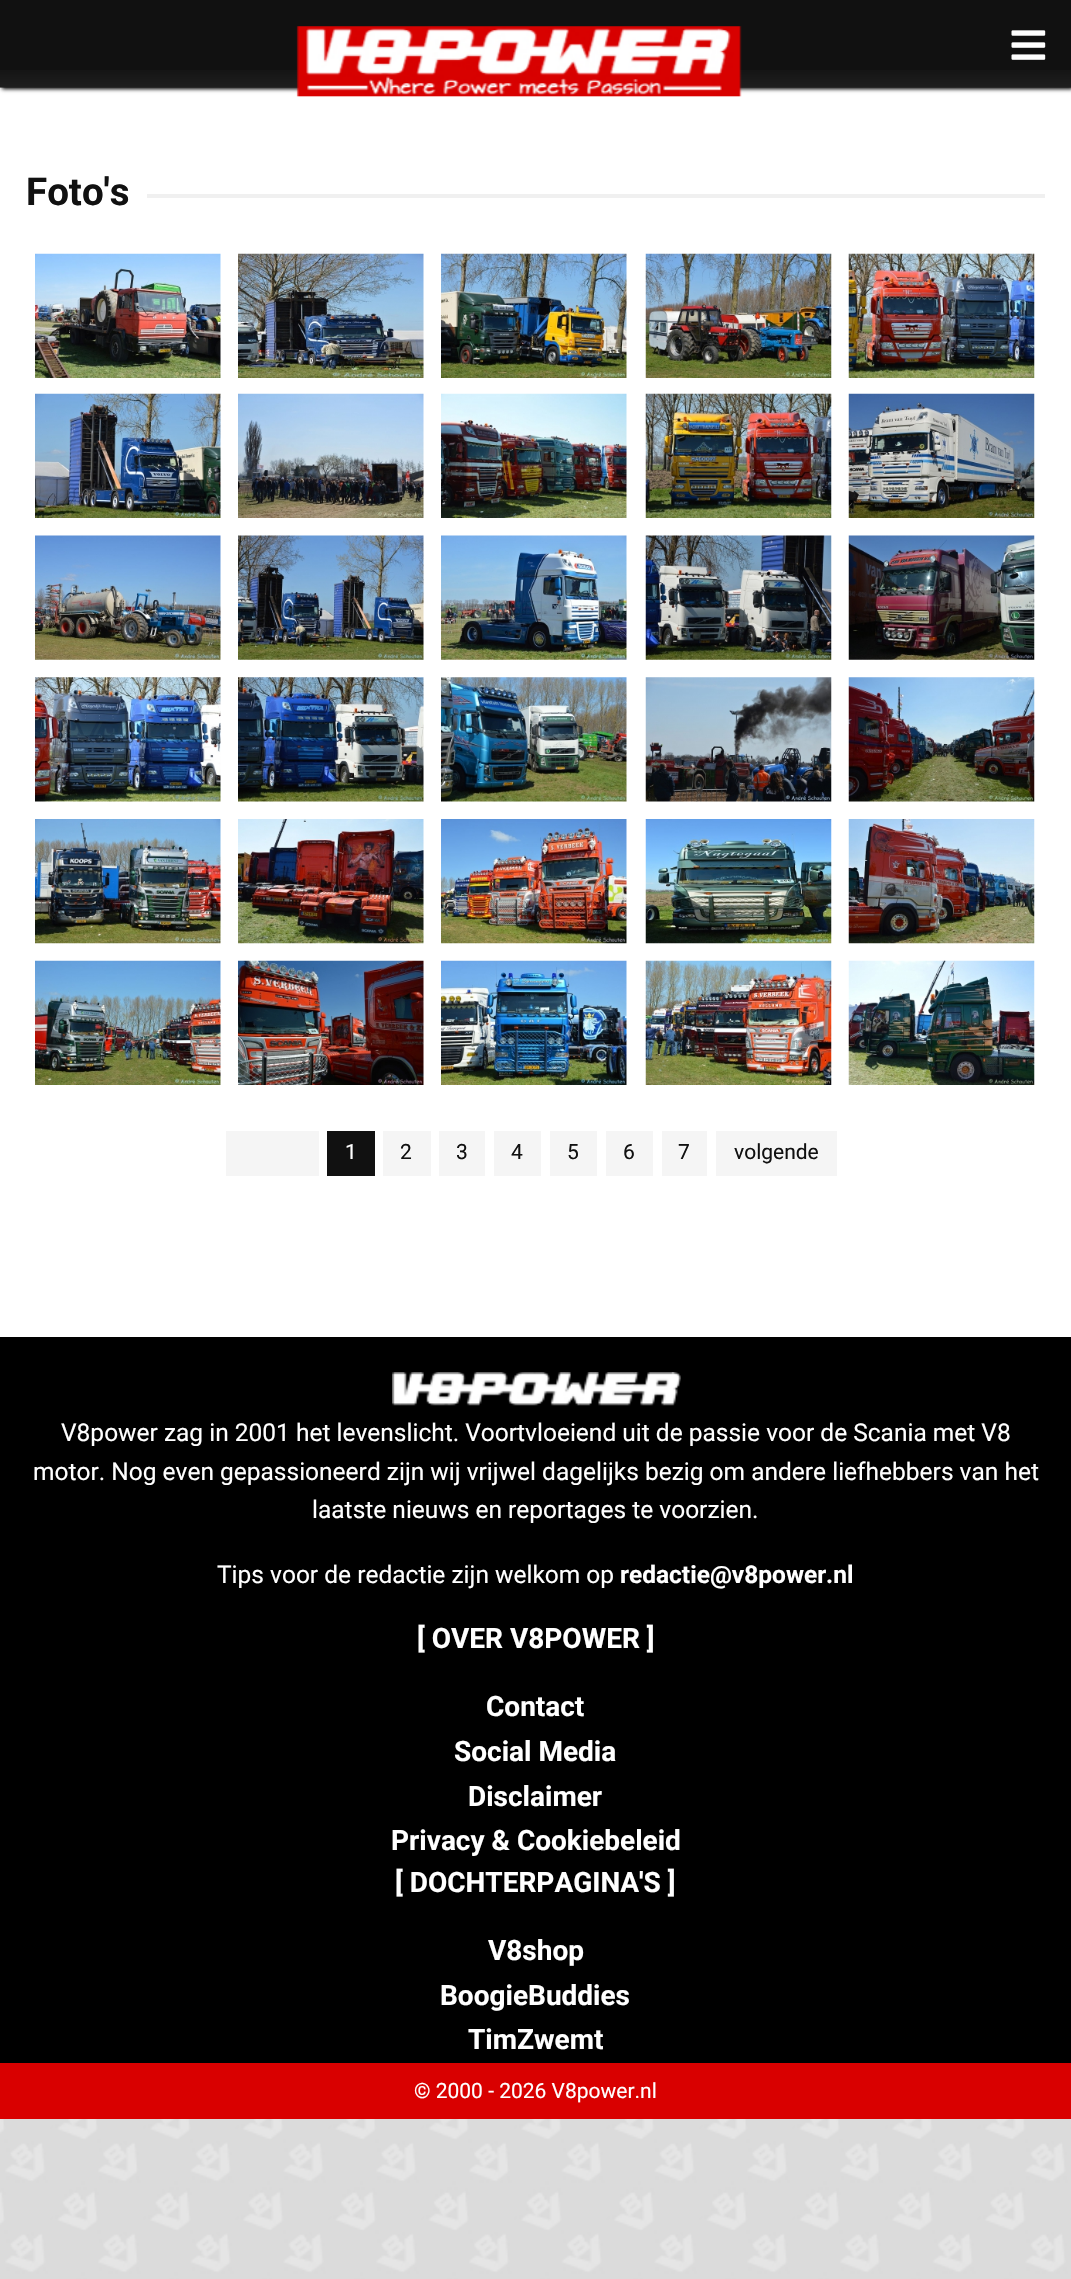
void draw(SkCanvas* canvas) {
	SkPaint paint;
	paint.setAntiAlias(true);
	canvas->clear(0xffffffff);
	canvas->drawImageRect(SkImages::DeferredFromEncodedData(SkData::MakeFromFileName("img1.png")), SkRect::MakeXYWH(0, 87, 1071, 2192), SkSamplingOptions());
	paint.setColor(0xffffffff);
	canvas->drawRect(SkRect::MakeXYWH(0, 88, 1071, 1249), paint);
	paint.setColor(0xff000000);
	paint.setMaskFilter(SkMaskFilter::MakeBlur(kNormal_SkBlurStyle, 2));
	canvas->drawRect(SkRect::MakeXYWH(2, 2, 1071, 87), paint);
	paint.setMaskFilter(nullptr);
	canvas->drawImageRect(SkImages::DeferredFromEncodedData(SkData::MakeFromFileName("img2.png")), SkRect::MakeXYWH(0, 70, 1071, 18), SkSamplingOptions());
	paint.setColor(0xff111111);
	canvas->drawRect(SkRect::MakeXYWH(0, 0, 1071, 70), paint);
	canvas->drawImageRect(SkImages::DeferredFromEncodedData(SkData::MakeFromFileName("img3.png")), SkRect::MakeXYWH(296, 26, 446, 71), SkSamplingOptions());
	canvas->drawImageRect(SkImages::DeferredFromEncodedData(SkData::MakeFromFileName("img4.png")), SkRect::MakeXYWH(1011, 30, 35, 30), SkSamplingOptions());
	SkFont f1(fontMgr->matchFamilyStyle("Roboto", SkFontStyle::Bold()), 38.5);
	f1.setSubpixel(true);
	canvas->drawString("Foto's", 26, 205, f1, paint);
	paint.setColor(0xfff0f0f0);
	canvas->drawRect(SkRect::MakeXYWH(147, 194, 898, 4), paint);
	canvas->drawImageRect(SkImages::DeferredFromEncodedData(SkData::MakeFromFileName("img5.png")), SkRect::MakeXYWH(35, 253, 186, 125), SkSamplingOptions());
	canvas->drawImageRect(SkImages::DeferredFromEncodedData(SkData::MakeFromFileName("img6.png")), SkRect::MakeXYWH(238, 253, 186, 125), SkSamplingOptions());
	canvas->drawImageRect(SkImages::DeferredFromEncodedData(SkData::MakeFromFileName("img7.png")), SkRect::MakeXYWH(441, 253, 186, 125), SkSamplingOptions());
	canvas->drawImageRect(SkImages::DeferredFromEncodedData(SkData::MakeFromFileName("img8.png")), SkRect::MakeXYWH(645, 253, 187, 125), SkSamplingOptions());
	canvas->drawImageRect(SkImages::DeferredFromEncodedData(SkData::MakeFromFileName("img9.png")), SkRect::MakeXYWH(848, 253, 187, 125), SkSamplingOptions());
	canvas->drawImageRect(SkImages::DeferredFromEncodedData(SkData::MakeFromFileName("img10.png")), SkRect::MakeXYWH(35, 393, 186, 125), SkSamplingOptions());
	canvas->drawImageRect(SkImages::DeferredFromEncodedData(SkData::MakeFromFileName("img11.png")), SkRect::MakeXYWH(238, 393, 186, 125), SkSamplingOptions());
	canvas->drawImageRect(SkImages::DeferredFromEncodedData(SkData::MakeFromFileName("img12.png")), SkRect::MakeXYWH(441, 393, 186, 125), SkSamplingOptions());
	canvas->drawImageRect(SkImages::DeferredFromEncodedData(SkData::MakeFromFileName("img13.png")), SkRect::MakeXYWH(645, 393, 187, 125), SkSamplingOptions());
	canvas->drawImageRect(SkImages::DeferredFromEncodedData(SkData::MakeFromFileName("img14.png")), SkRect::MakeXYWH(848, 393, 187, 125), SkSamplingOptions());
	canvas->drawImageRect(SkImages::DeferredFromEncodedData(SkData::MakeFromFileName("img15.png")), SkRect::MakeXYWH(35, 535, 186, 125), SkSamplingOptions());
	canvas->drawImageRect(SkImages::DeferredFromEncodedData(SkData::MakeFromFileName("img16.png")), SkRect::MakeXYWH(238, 535, 186, 125), SkSamplingOptions());
	canvas->drawImageRect(SkImages::DeferredFromEncodedData(SkData::MakeFromFileName("img17.png")), SkRect::MakeXYWH(441, 535, 186, 125), SkSamplingOptions());
	canvas->drawImageRect(SkImages::DeferredFromEncodedData(SkData::MakeFromFileName("img18.png")), SkRect::MakeXYWH(645, 535, 187, 125), SkSamplingOptions());
	canvas->drawImageRect(SkImages::DeferredFromEncodedData(SkData::MakeFromFileName("img19.png")), SkRect::MakeXYWH(848, 535, 187, 125), SkSamplingOptions());
	canvas->drawImageRect(SkImages::DeferredFromEncodedData(SkData::MakeFromFileName("img20.png")), SkRect::MakeXYWH(35, 677, 186, 125), SkSamplingOptions());
	canvas->drawImageRect(SkImages::DeferredFromEncodedData(SkData::MakeFromFileName("img21.png")), SkRect::MakeXYWH(238, 677, 186, 125), SkSamplingOptions());
	canvas->drawImageRect(SkImages::DeferredFromEncodedData(SkData::MakeFromFileName("img22.png")), SkRect::MakeXYWH(441, 677, 186, 125), SkSamplingOptions());
	canvas->drawImageRect(SkImages::DeferredFromEncodedData(SkData::MakeFromFileName("img23.png")), SkRect::MakeXYWH(645, 677, 187, 125), SkSamplingOptions());
	canvas->drawImageRect(SkImages::DeferredFromEncodedData(SkData::MakeFromFileName("img24.png")), SkRect::MakeXYWH(848, 677, 187, 125), SkSamplingOptions());
	canvas->drawImageRect(SkImages::DeferredFromEncodedData(SkData::MakeFromFileName("img25.png")), SkRect::MakeXYWH(35, 819, 186, 125), SkSamplingOptions());
	canvas->drawImageRect(SkImages::DeferredFromEncodedData(SkData::MakeFromFileName("img26.png")), SkRect::MakeXYWH(238, 819, 186, 125), SkSamplingOptions());
	canvas->drawImageRect(SkImages::DeferredFromEncodedData(SkData::MakeFromFileName("img27.png")), SkRect::MakeXYWH(441, 819, 186, 125), SkSamplingOptions());
	canvas->drawImageRect(SkImages::DeferredFromEncodedData(SkData::MakeFromFileName("img28.png")), SkRect::MakeXYWH(645, 819, 187, 125), SkSamplingOptions());
	canvas->drawImageRect(SkImages::DeferredFromEncodedData(SkData::MakeFromFileName("img29.png")), SkRect::MakeXYWH(848, 819, 187, 125), SkSamplingOptions());
	canvas->drawImageRect(SkImages::DeferredFromEncodedData(SkData::MakeFromFileName("img30.png")), SkRect::MakeXYWH(35, 960, 186, 125), SkSamplingOptions());
	canvas->drawImageRect(SkImages::DeferredFromEncodedData(SkData::MakeFromFileName("img31.png")), SkRect::MakeXYWH(238, 960, 186, 125), SkSamplingOptions());
	canvas->drawImageRect(SkImages::DeferredFromEncodedData(SkData::MakeFromFileName("img32.png")), SkRect::MakeXYWH(441, 960, 186, 125), SkSamplingOptions());
	canvas->drawImageRect(SkImages::DeferredFromEncodedData(SkData::MakeFromFileName("img33.png")), SkRect::MakeXYWH(645, 960, 187, 125), SkSamplingOptions());
	canvas->drawImageRect(SkImages::DeferredFromEncodedData(SkData::MakeFromFileName("img34.png")), SkRect::MakeXYWH(848, 960, 187, 125), SkSamplingOptions());
	paint.setColor(0xfff5f5f5);
	canvas->drawRect(SkRect::MakeXYWH(226, 1131, 93, 45), paint);
	paint.setColor(0xff111111);
	canvas->drawRect(SkRect::MakeXYWH(327, 1131, 48, 45), paint);
	SkFont f2(fontMgr->matchFamilyStyle("Roboto", SkFontStyle::Normal()), 21);
	f2.setSubpixel(true);
	paint.setColor(0xffffffff);
	canvas->drawString("1", 345, 1159, f2, paint);
	paint.setColor(0xfff5f5f5);
	canvas->drawRect(SkRect::MakeXYWH(383, 1131, 48, 45), paint);
	paint.setColor(0xff111111);
	canvas->drawString("2", 400, 1159, f2, paint);
	paint.setColor(0xfff5f5f5);
	canvas->drawRect(SkRect::MakeXYWH(439, 1131, 46, 45), paint);
	paint.setColor(0xff111111);
	canvas->drawString("3", 456, 1159, f2, paint);
	paint.setColor(0xfff5f5f5);
	canvas->drawRect(SkRect::MakeXYWH(494, 1131, 47, 45), paint);
	paint.setColor(0xff111111);
	canvas->drawString("4", 511, 1159, f2, paint);
	paint.setColor(0xfff5f5f5);
	canvas->drawRect(SkRect::MakeXYWH(550, 1131, 47, 45), paint);
	paint.setColor(0xff111111);
	canvas->drawString("5", 567, 1159, f2, paint);
	paint.setColor(0xfff5f5f5);
	canvas->drawRect(SkRect::MakeXYWH(606, 1131, 47, 45), paint);
	paint.setColor(0xff111111);
	canvas->drawString("6", 623, 1159, f2, paint);
	paint.setColor(0xfff5f5f5);
	canvas->drawRect(SkRect::MakeXYWH(662, 1131, 45, 45), paint);
	paint.setColor(0xff111111);
	canvas->drawString("7", 678, 1159, f2, paint);
	paint.setColor(0xfff5f5f5);
	canvas->drawRect(SkRect::MakeXYWH(716, 1131, 121, 45), paint);
	paint.setColor(0xff111111);
	canvas->drawString("volgende", 734, 1159, f2, paint);
	paint.setColor(0xff000000);
	canvas->drawRect(SkRect::MakeXYWH(0, 1337, 1071, 726), paint);
	canvas->drawImageRect(SkImages::DeferredFromEncodedData(SkData::MakeFromFileName("img35.png")), SkRect::MakeXYWH(392, 1372, 289, 34), SkSamplingOptions());
	SkFont f3(fontMgr->matchFamilyStyle("Roboto", SkFontStyle::Normal()), 24.5);
	f3.setSubpixel(true);
	paint.setColor(0xffffffff);
	canvas->drawString("V8power zag in 2001 het levenslicht. Voortvloeiend uit de passie voor de Scania met V8", 61, 1441, f3, paint);
	canvas->drawString("motor. Nog even gepassioneerd zijn wij vrijwel dagelijks bezig om andere liefhebbers van het", 33, 1480, f3, paint);
	canvas->drawString("laatste nieuws en reportages te voorzien.", 312, 1518, f3, paint);
	canvas->drawString("Tips voor de redactie zijn welkom op", 217, 1583, f3, paint);
	SkFont f4(fontMgr->matchFamilyStyle("Roboto", SkFontStyle::Bold()), 24.5);
	f4.setSubpixel(true);
	canvas->drawString("redactie@v8power.nl", 620, 1583, f4, paint);
	SkFont f5(fontMgr->matchFamilyStyle("Roboto", SkFontStyle::Bold()), 28);
	f5.setSubpixel(true);
	canvas->drawString("[ OVER V8POWER ]", 417, 1648, f5, paint);
	canvas->drawString("Contact", 486, 1716, f5, paint);
	canvas->drawString("Social Media", 454, 1761, f5, paint);
	canvas->drawString("Disclaimer", 468, 1806, f5, paint);
	canvas->drawString("Privacy & Cookiebeleid", 391, 1850, f5, paint);
	canvas->drawString("[ DOCHTERPAGINA'S ]", 395, 1892, f5, paint);
	canvas->drawString("V8shop", 488, 1960, f5, paint);
	canvas->drawString("BoogieBuddies", 440, 2005, f5, paint);
	canvas->drawString("TimZwemt", 468, 2049, f5, paint);
	paint.setColor(0xffd90000);
	canvas->drawRect(SkRect::MakeXYWH(0, 2063, 1071, 56), paint);
	paint.setColor(0xffffffff);
	canvas->drawString("© 2000 - 2026 V8power.nl", 414, 2098, f2, paint);
}
